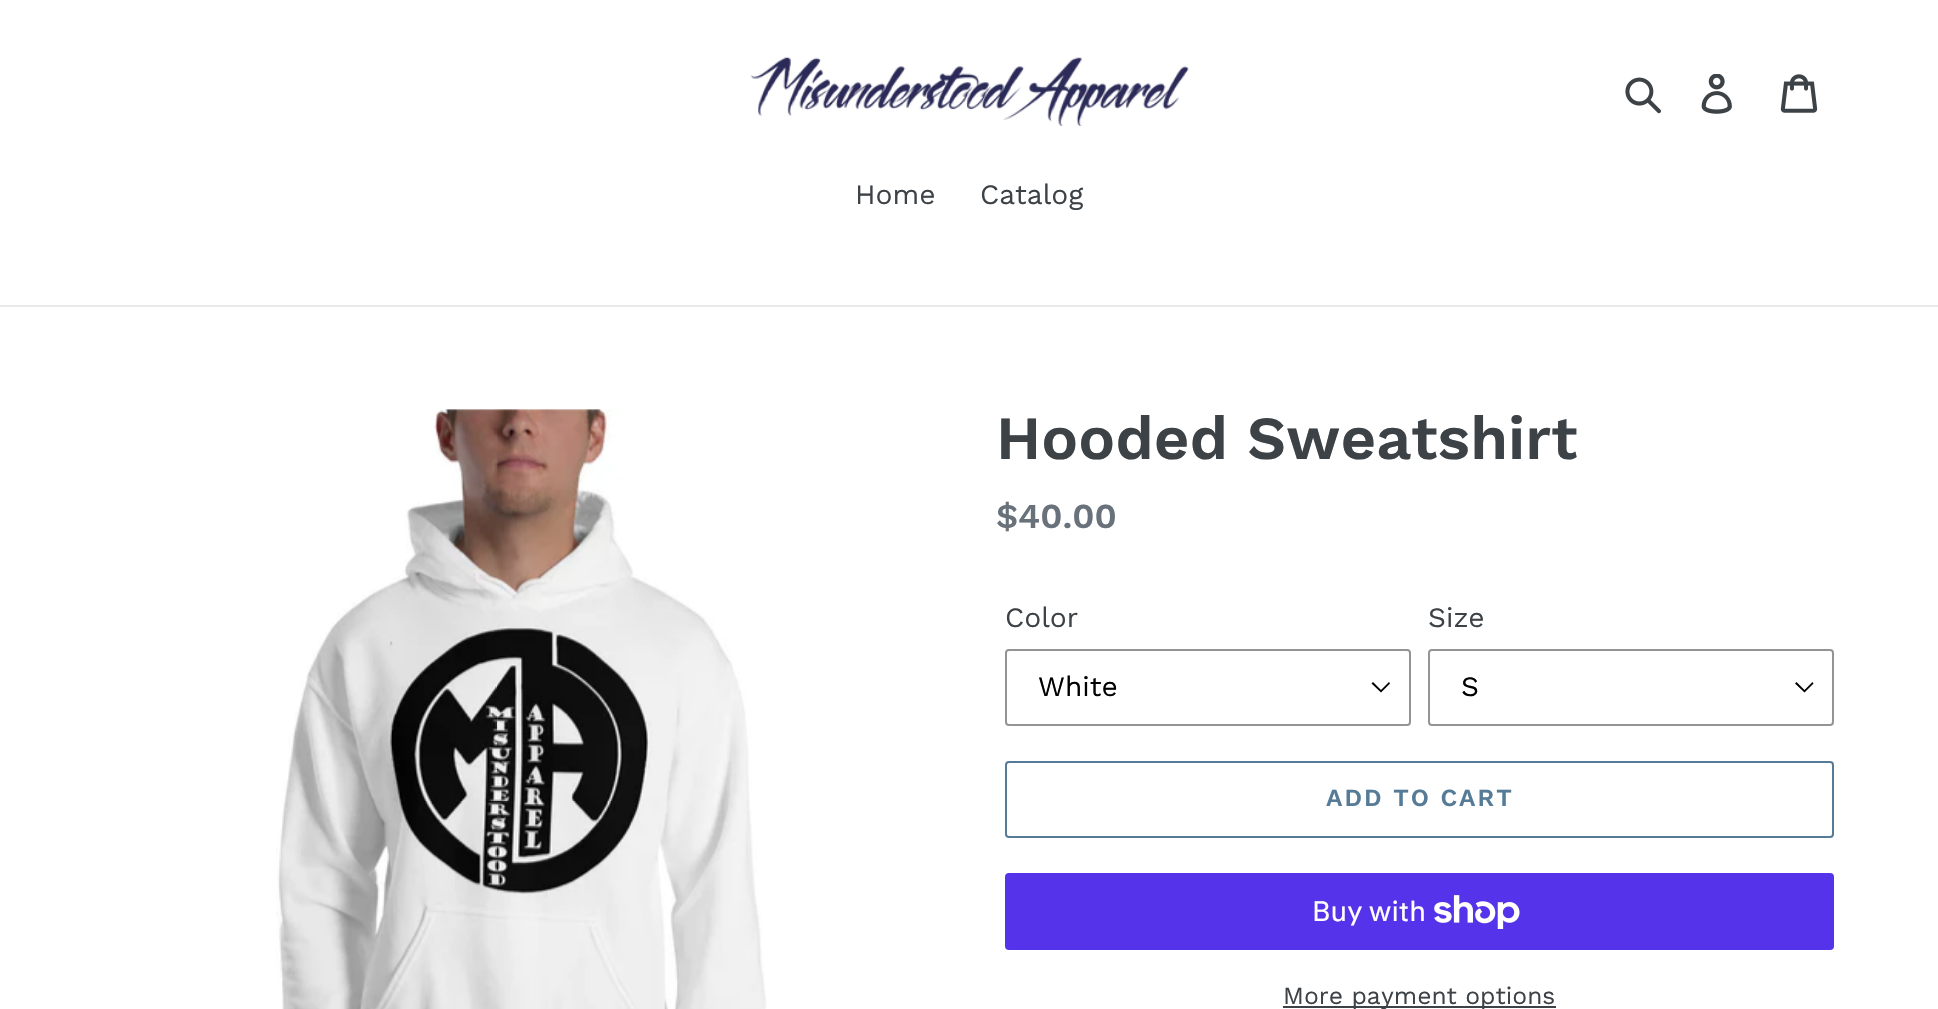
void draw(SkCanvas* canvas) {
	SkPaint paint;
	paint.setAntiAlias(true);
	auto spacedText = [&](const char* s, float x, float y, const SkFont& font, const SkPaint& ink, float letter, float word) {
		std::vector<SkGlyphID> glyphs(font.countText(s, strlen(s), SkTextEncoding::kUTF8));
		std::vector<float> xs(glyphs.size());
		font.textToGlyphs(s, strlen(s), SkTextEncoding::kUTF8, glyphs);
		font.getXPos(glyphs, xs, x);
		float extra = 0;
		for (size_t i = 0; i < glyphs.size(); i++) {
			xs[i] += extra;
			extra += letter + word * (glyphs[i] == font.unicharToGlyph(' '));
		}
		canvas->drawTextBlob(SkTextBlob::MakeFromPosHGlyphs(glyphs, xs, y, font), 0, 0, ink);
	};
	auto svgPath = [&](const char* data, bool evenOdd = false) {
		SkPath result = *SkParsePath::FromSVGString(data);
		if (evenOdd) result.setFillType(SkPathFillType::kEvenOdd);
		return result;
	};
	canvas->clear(0xffffffff);
	canvas->drawImageRect(SkImages::DeferredFromEncodedData(SkData::MakeFromFileName("img1.png")), SkRect::MakeXYWH(750, 57, 439, 69), SkSamplingOptions());
	canvas->drawImageRect(SkImages::DeferredFromEncodedData(SkData::MakeFromFileName("img2.png")), SkRect::MakeXYWH(1625, 77, 36, 37), SkSamplingOptions());
	canvas->drawImageRect(SkImages::DeferredFromEncodedData(SkData::MakeFromFileName("img3.png")), SkRect::MakeXYWH(1701, 74, 31, 40), SkSamplingOptions());
	canvas->drawImageRect(SkImages::DeferredFromEncodedData(SkData::MakeFromFileName("img4.png")), SkRect::MakeXYWH(1780, 74, 38, 39), SkSamplingOptions());
	paint.setColor(0xffe8e9eb);
	canvas->drawRect(SkRect::MakeXYWH(0, 305, 1938, 2), paint);
	SkFont f1(fontMgr->matchFamilyStyle("Work Sans", SkFontStyle::Normal()), 28);
	f1.setSubpixel(true);
	paint.setColor(0xff3d4246);
	canvas->drawString("Home", 855, 204, f1, paint);
	canvas->drawString("Catalog", 980, 204, f1, paint);
	canvas->drawImageRect(SkImages::DeferredFromEncodedData(SkData::MakeFromFileName("img5.png")), SkRect::MakeXYWH(276, 409, 491, 600), SkSamplingOptions());
	SkFont f2(fontMgr->matchFamilyStyle("Work Sans", SkFontStyle(600, SkFontStyle::kNormal_Width, SkFontStyle::kUpright_Slant)), 61.25);
	f2.setSubpixel(true);
	canvas->drawString("Hooded Sweatshirt", 996, 459, f2, paint);
	SkFont f3(fontMgr->matchFamilyStyle("Work Sans", SkFontStyle(600, SkFontStyle::kNormal_Width, SkFontStyle::kUpright_Slant)), 35);
	f3.setSubpixel(true);
	paint.setColor(0xff69727b);
	canvas->drawString("$40.00", 996, 528, f3, paint);
	paint.setColor(0xff3d4246);
	canvas->drawString("Color", 1005, 627, f1, paint);
	paint.setColor(0xff000000);
	canvas->drawPath(svgPath("M1381 692.5L1371.5 683.5L1373 682L1381 690L1389 682L1390 683.5Z"), paint);
	paint.setStroke(true);
	paint.setStrokeWidth(2);
	paint.setColor(0xff949494);
	canvas->drawRoundRect(SkRect::MakeXYWH(1006, 650, 404, 75), 3, 3, paint);
	paint.setStroke(false);
	paint.setColor(0xff000000);
	canvas->drawString("White", 1038, 696, f1, paint);
	paint.setColor(0xff3d4246);
	canvas->drawString("Size", 1428, 627, f1, paint);
	paint.setColor(0xff000000);
	canvas->drawPath(svgPath("M1804.5 692.5L1795 683.5L1796.5 682L1804.5 690L1812.5 682L1813.5 683.5Z"), paint);
	paint.setStroke(true);
	paint.setColor(0xff949494);
	canvas->drawRoundRect(SkRect::MakeXYWH(1429, 650, 404, 75), 3, 3, paint);
	paint.setStroke(false);
	paint.setColor(0xff000000);
	canvas->drawString("S", 1461, 696, f1, paint);
	paint.setStroke(true);
	paint.setColor(0xff557b97);
	canvas->drawRoundRect(SkRect::MakeXYWH(1006, 762, 827, 75), 3, 3, paint);
	SkFont f4(fontMgr->matchFamilyStyle("Work Sans", SkFontStyle(600, SkFontStyle::kNormal_Width, SkFontStyle::kUpright_Slant)), 24.5);
	f4.setSubpixel(true);
	paint.setStroke(false);
	spacedText("ADD TO CART", 1326, 806, f4, paint, 2, 0);
	paint.setColor(0xff5433eb);
	canvas->drawRoundRect(SkRect::MakeXYWH(1005, 873, 829, 77), 4, 4, paint);
	SkFont f5(fontMgr->matchFamilyStyle("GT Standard", SkFontStyle::Normal()), 28);
	f5.setSubpixel(true);
	paint.setColor(0xffffffff);
	canvas->drawString("Buy with", 1312, 921, f5, paint);
	canvas->drawImageRect(SkImages::DeferredFromEncodedData(SkData::MakeFromFileName("img6.png")), SkRect::MakeXYWH(1434, 895, 86, 34), SkSamplingOptions());
	paint.setColor(0xff3d4246);
	canvas->drawRect(SkRect::MakeXYWH(1283, 1006, 273, 2), paint);
	SkFont f6(fontMgr->matchFamilyStyle("Work Sans", SkFontStyle::Normal()), 24.5);
	f6.setSubpixel(true);
	canvas->drawString("More payment options", 1283, 1004, f6, paint);
}
